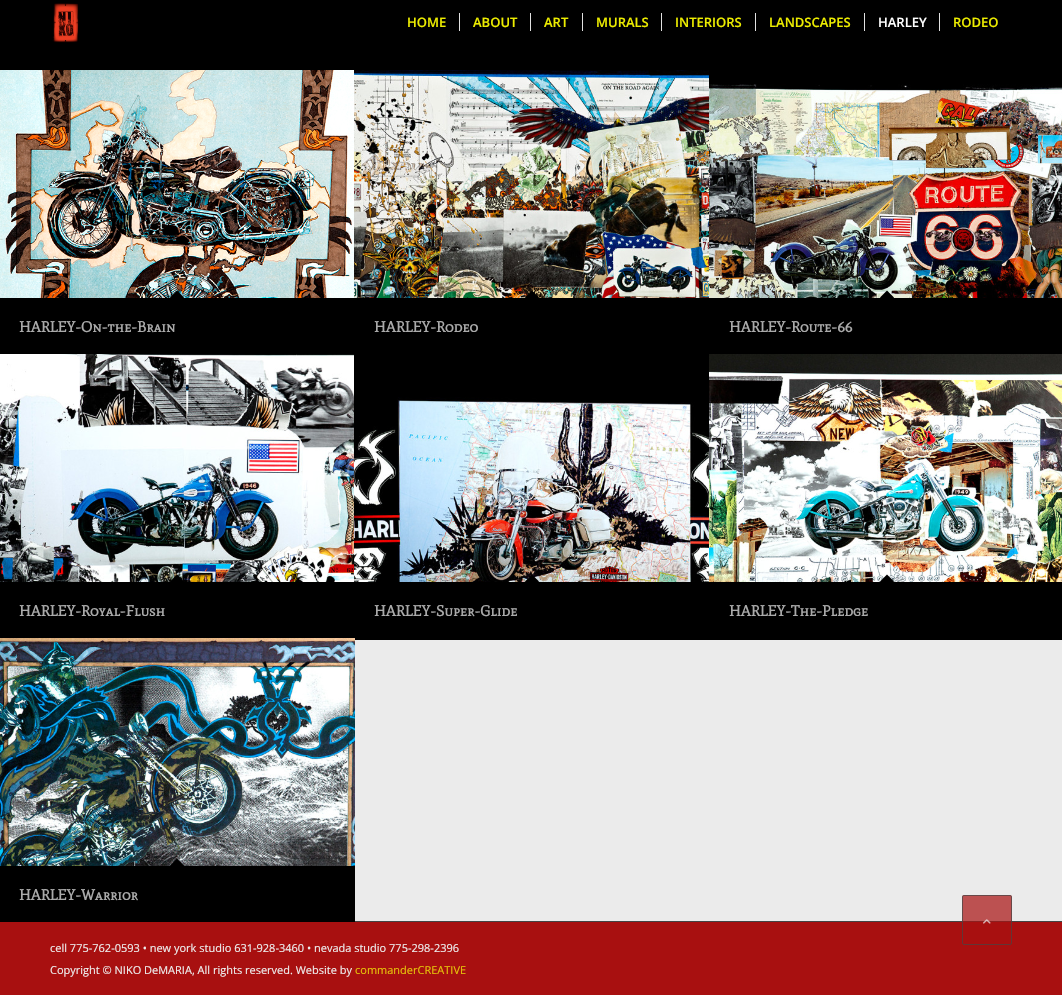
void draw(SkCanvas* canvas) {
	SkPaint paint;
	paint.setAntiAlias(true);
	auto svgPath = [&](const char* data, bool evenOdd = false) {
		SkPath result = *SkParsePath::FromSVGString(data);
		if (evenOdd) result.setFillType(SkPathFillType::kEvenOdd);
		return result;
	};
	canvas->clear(0xffebebeb);
	paint.setColor(0xff000000);
	canvas->drawRect(SkRect::MakeXYWH(0, 0, 1062, 70), paint);
	canvas->drawImageRect(SkImages::DeferredFromEncodedData(SkData::MakeFromFileName("img1.png")), SkRect::MakeXYWH(52, 3, 27, 40), SkSamplingOptions());
	SkFont f1(fontMgr->matchFamilyStyle("Open Sans", SkFontStyle(600, SkFontStyle::kNormal_Width, SkFontStyle::kUpright_Slant)), 13);
	f1.setSubpixel(true);
	paint.setColor(0xffeded00);
	canvas->drawString("HOME", 407, 27, f1, paint);
	canvas->drawString("ABOUT", 473, 27, f1, paint);
	paint.setColor(0xffe1e1e1);
	canvas->drawRect(SkRect::MakeXYWH(459, 13, 1, 18), paint);
	paint.setColor(0xffeded00);
	canvas->drawString("ART", 544, 27, f1, paint);
	paint.setColor(0xffe1e1e1);
	canvas->drawRect(SkRect::MakeXYWH(530, 13, 1, 18), paint);
	paint.setColor(0xffeded00);
	canvas->drawString("MURALS", 596, 27, f1, paint);
	paint.setColor(0xffe1e1e1);
	canvas->drawRect(SkRect::MakeXYWH(582, 13, 1, 18), paint);
	paint.setColor(0xffeded00);
	canvas->drawString("INTERIORS", 675, 27, f1, paint);
	paint.setColor(0xffe1e1e1);
	canvas->drawRect(SkRect::MakeXYWH(661, 13, 1, 18), paint);
	paint.setColor(0xffeded00);
	canvas->drawString("LANDSCAPES", 769, 27, f1, paint);
	paint.setColor(0xffe1e1e1);
	canvas->drawRect(SkRect::MakeXYWH(755, 13, 1, 18), paint);
	paint.setColor(0xffffffff);
	canvas->drawString("HARLEY", 878, 27, f1, paint);
	paint.setColor(0xffe1e1e1);
	canvas->drawRect(SkRect::MakeXYWH(864, 13, 1, 18), paint);
	paint.setColor(0xffeded00);
	canvas->drawString("RODEO", 953, 27, f1, paint);
	paint.setColor(0xffe1e1e1);
	canvas->drawRect(SkRect::MakeXYWH(939, 13, 1, 18), paint);
	canvas->drawImageRect(SkImages::DeferredFromEncodedData(SkData::MakeFromFileName("img2.png")), SkRect::MakeXYWH(0, 70, 354, 228), SkSamplingOptions());
	paint.setColor(0xff000000);
	canvas->drawRect(SkRect::MakeXYWH(0, 298, 1062, 56), paint);
	canvas->drawPath(svgPath("M177 290.5L184 297.5L177 304.5L170 297.5Z"), paint);
	SkFont f2(fontMgr->matchFamilyStyle("Mate SC", SkFontStyle::Bold()), 15);
	f2.setSubpixel(true);
	paint.setColor(0xffaaaaaa);
	canvas->drawString("HARLEY-On-the-Brain", 19, 332, f2, paint);
	canvas->drawImageRect(SkImages::DeferredFromEncodedData(SkData::MakeFromFileName("img3.png")), SkRect::MakeXYWH(354, 70, 355, 228), SkSamplingOptions());
	paint.setColor(0xff000000);
	canvas->drawPath(svgPath("M532 290.5L539 297.5L532 304.5L525 297.5Z"), paint);
	paint.setColor(0xffaaaaaa);
	canvas->drawString("HARLEY-Rodeo", 374, 332, f2, paint);
	paint.setColor(0xff000000);
	canvas->drawRect(SkRect::MakeXYWH(709, 70, 353, 14), paint);
	canvas->drawImageRect(SkImages::DeferredFromEncodedData(SkData::MakeFromFileName("img4.png")), SkRect::MakeXYWH(709, 84, 353, 214), SkSamplingOptions());
	canvas->drawPath(svgPath("M887 290.5L894 297.5L887 304.5L880 297.5Z"), paint);
	paint.setColor(0xffaaaaaa);
	canvas->drawString("HARLEY-Route-66", 729, 332, f2, paint);
	canvas->drawImageRect(SkImages::DeferredFromEncodedData(SkData::MakeFromFileName("img5.png")), SkRect::MakeXYWH(0, 354, 354, 228), SkSamplingOptions());
	paint.setColor(0xff000000);
	canvas->drawRect(SkRect::MakeXYWH(0, 582, 354, 56), paint);
	canvas->drawPath(svgPath("M177 574.5L184 581.5L177 588.5L170 581.5Z"), paint);
	paint.setColor(0xffaaaaaa);
	canvas->drawString("HARLEY-Royal-Flush", 19, 616, f2, paint);
	paint.setColor(0xff000000);
	canvas->drawRect(SkRect::MakeXYWH(354, 354, 355, 43), paint);
	canvas->drawImageRect(SkImages::DeferredFromEncodedData(SkData::MakeFromFileName("img6.png")), SkRect::MakeXYWH(354, 397, 355, 185), SkSamplingOptions());
	canvas->drawRect(SkRect::MakeXYWH(354, 582, 708, 58), paint);
	canvas->drawPath(svgPath("M532 574.5L539 581.5L532 588.5L525 581.5Z"), paint);
	paint.setColor(0xffaaaaaa);
	canvas->drawString("HARLEY-Super-Glide", 374, 616, f2, paint);
	canvas->drawImageRect(SkImages::DeferredFromEncodedData(SkData::MakeFromFileName("img7.png")), SkRect::MakeXYWH(709, 354, 353, 228), SkSamplingOptions());
	paint.setColor(0xff000000);
	canvas->drawPath(svgPath("M887 574.5L894 581.5L887 588.5L880 581.5Z"), paint);
	paint.setColor(0xffaaaaaa);
	canvas->drawString("HARLEY-The-Pledge", 729, 616, f2, paint);
	canvas->drawImageRect(SkImages::DeferredFromEncodedData(SkData::MakeFromFileName("img8.png")), SkRect::MakeXYWH(0, 638, 355, 228), SkSamplingOptions());
	paint.setColor(0xff000000);
	canvas->drawRect(SkRect::MakeXYWH(0, 866, 355, 56), paint);
	canvas->drawPath(svgPath("M177 858.5L184 865.5L177 872.5L170 865.5Z"), paint);
	paint.setColor(0xffaaaaaa);
	canvas->drawString("HARLEY-Warrior", 19, 900, f2, paint);
	paint.setColor(0xffa81010);
	canvas->drawRect(SkRect::MakeXYWH(0, 922, 1062, 73), paint);
	paint.setColor(0xff444444);
	canvas->drawRect(SkRect::MakeXYWH(355, 921, 707, 1), paint);
	SkFont f3(fontMgr->matchFamilyStyle("Open Sans", SkFontStyle::Normal()), 11);
	f3.setSubpixel(true);
	paint.setColor(0xffeeeeee);
	canvas->drawString("cell 775-762-0593 • new york studio 631-928-3460 • nevada studio 775-298-2396", 50, 952, f3, paint);
	canvas->drawString("Copyright © NIKO DeMARIA, All rights reserved. Website by", 50, 974, f3, paint);
	paint.setColor(0xffe6c50a);
	canvas->drawString("commanderCREATIVE", 355, 974, f3, paint);
	paint.setColor(0xb3a81010);
	canvas->drawRoundRect(SkRect::MakeXYWH(962, 895, 50, 50), 2, 2, paint);
	paint.setStroke(true);
	paint.setStrokeWidth(1);
	paint.setColor(0xb3444444);
	canvas->drawRoundRect(SkRect::MakeXYWH(962.5, 895.5, 49, 49), 1.5, 1.5, paint);
	canvas->drawImageRect(SkImages::DeferredFromEncodedData(SkData::MakeFromFileName("img9.png")), SkRect::MakeXYWH(983, 919, 8, 5), SkSamplingOptions());
}
